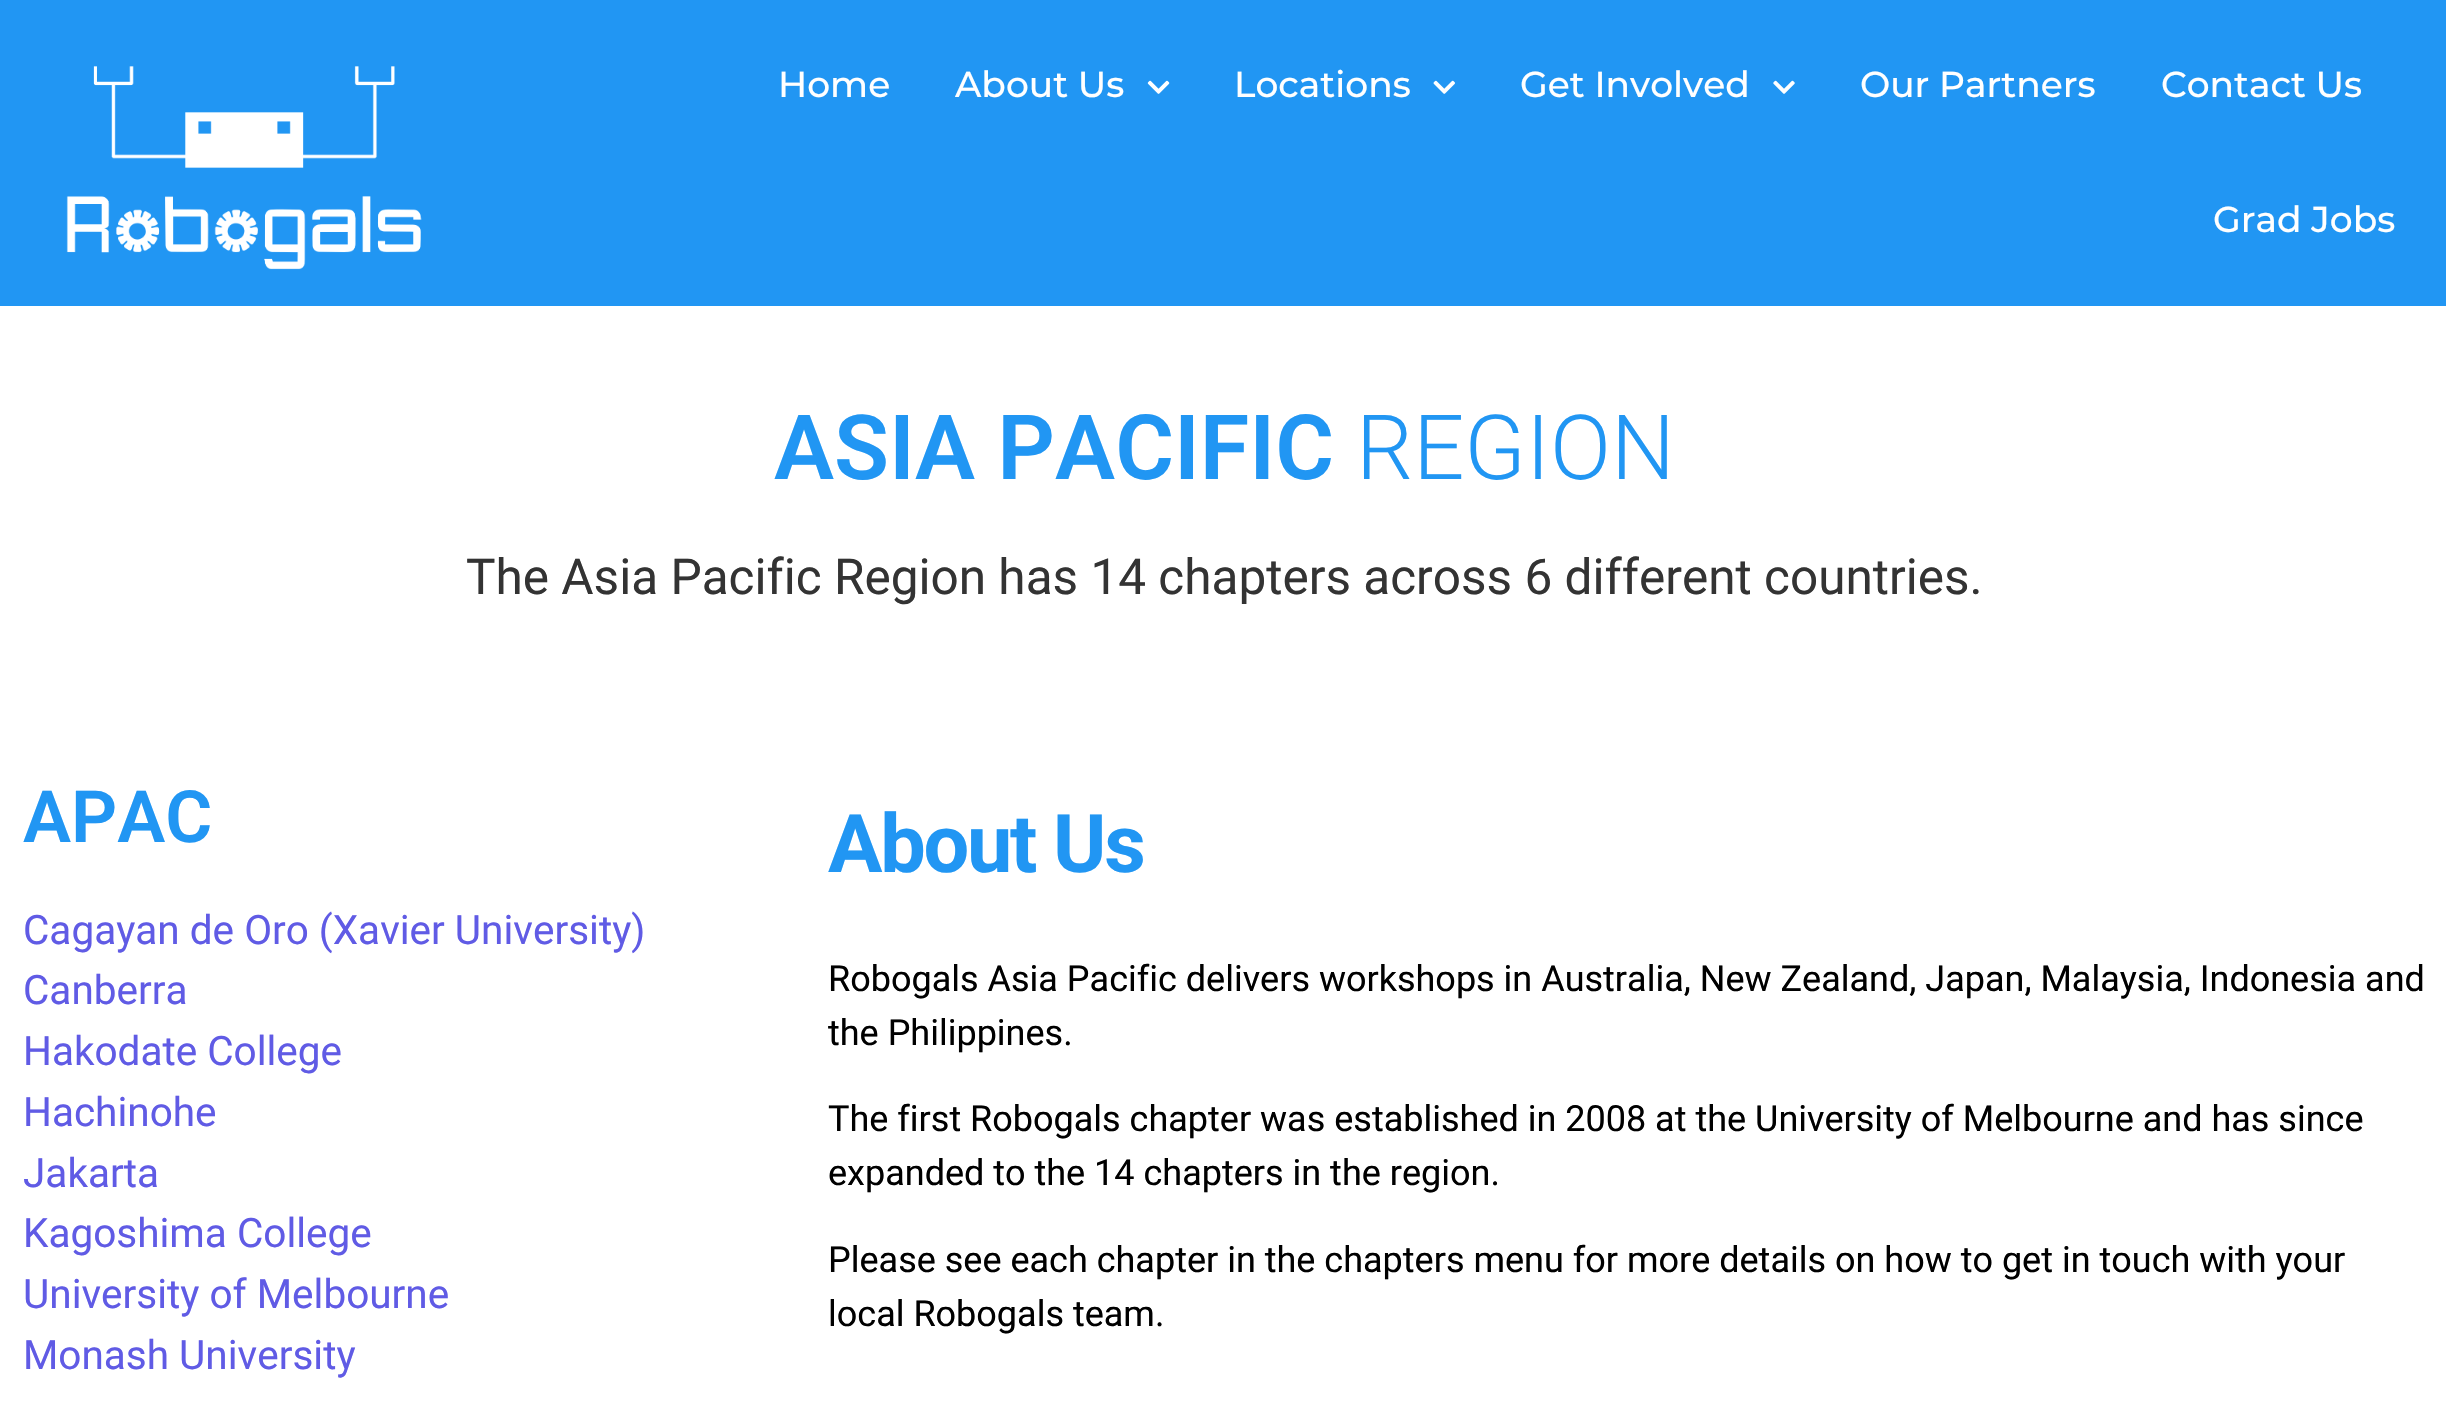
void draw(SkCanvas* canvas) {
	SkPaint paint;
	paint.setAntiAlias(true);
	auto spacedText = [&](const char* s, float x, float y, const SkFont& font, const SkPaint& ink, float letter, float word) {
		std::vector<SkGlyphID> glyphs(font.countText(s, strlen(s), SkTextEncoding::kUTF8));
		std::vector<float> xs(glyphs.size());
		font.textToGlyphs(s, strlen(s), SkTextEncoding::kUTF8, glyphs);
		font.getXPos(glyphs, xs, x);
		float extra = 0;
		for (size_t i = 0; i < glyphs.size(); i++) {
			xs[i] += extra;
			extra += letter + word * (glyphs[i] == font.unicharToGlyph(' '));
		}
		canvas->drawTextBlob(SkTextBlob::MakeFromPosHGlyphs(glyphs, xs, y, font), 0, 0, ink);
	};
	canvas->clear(0xffffffff);
	paint.setColor(0xff2196f3);
	canvas->drawRect(SkRect::MakeXYWH(0, 0, 2446, 306), paint);
	canvas->drawImageRect(SkImages::DeferredFromEncodedData(SkData::MakeFromFileName("img1.png")), SkRect::MakeXYWH(66, 66, 356, 204), SkSamplingOptions());
	SkFont f1(fontMgr->matchFamilyStyle("Montserrat", SkFontStyle(500, SkFontStyle::kNormal_Width, SkFontStyle::kUpright_Slant)), 36);
	f1.setSubpixel(true);
	paint.setColor(0xffffffff);
	canvas->drawString("Home", 778, 97, f1, paint);
	canvas->drawString("About Us", 955, 97, f1, paint);
	canvas->drawImageRect(SkImages::DeferredFromEncodedData(SkData::MakeFromFileName("img2.png")), SkRect::MakeXYWH(1147, 80, 23, 14), SkSamplingOptions());
	canvas->drawString("Locations", 1234, 97, f1, paint);
	canvas->drawImageRect(SkImages::DeferredFromEncodedData(SkData::MakeFromFileName("img3.png")), SkRect::MakeXYWH(1433, 80, 22, 14), SkSamplingOptions());
	canvas->drawString("Get Involved", 1520, 97, f1, paint);
	canvas->drawImageRect(SkImages::DeferredFromEncodedData(SkData::MakeFromFileName("img4.png")), SkRect::MakeXYWH(1773, 80, 22, 14), SkSamplingOptions());
	canvas->drawString("Our Partners", 1860, 97, f1, paint);
	canvas->drawString("Contact Us", 2161, 97, f1, paint);
	canvas->drawString("Grad Jobs", 2213, 232, f1, paint);
	SkFont f2(fontMgr->matchFamilyStyle("Roboto", SkFontStyle(600, SkFontStyle::kNormal_Width, SkFontStyle::kUpright_Slant)), 90);
	f2.setSubpixel(true);
	paint.setColor(0xff2196f3);
	canvas->drawString("ASIA PACIFIC", 774, 479, f2, paint);
	SkFont f3(fontMgr->matchFamilyStyle("Roboto", SkFontStyle(300, SkFontStyle::kNormal_Width, SkFontStyle::kUpright_Slant)), 90);
	f3.setSubpixel(true);
	canvas->drawString("REGION", 1356, 479, f3, paint);
	SkFont f4(fontMgr->matchFamilyStyle("Roboto", SkFontStyle::Normal()), 49.5);
	f4.setSubpixel(true);
	paint.setColor(0xff333333);
	canvas->drawString("The Asia Pacific Region has 14 chapters across 6 different countries.", 466, 594, f4, paint);
	SkFont f5(fontMgr->matchFamilyStyle("Roboto", SkFontStyle(600, SkFontStyle::kNormal_Width, SkFontStyle::kUpright_Slant)), 72);
	f5.setSubpixel(true);
	paint.setColor(0xff2196f3);
	canvas->drawString("APAC", 23, 842, f5, paint);
	SkFont f6(fontMgr->matchFamilyStyle("Roboto", SkFontStyle::Normal()), 40.5);
	f6.setSubpixel(true);
	paint.setColor(0xff605be5);
	canvas->drawString("Cagayan de Oro (Xavier University)", 23, 944, f6, paint);
	canvas->drawString("Canberra", 23, 1004, f6, paint);
	canvas->drawString("Hakodate College", 23, 1065, f6, paint);
	canvas->drawString("Hachinohe", 23, 1126, f6, paint);
	canvas->drawString("Jakarta", 23, 1187, f6, paint);
	canvas->drawString("Kagoshima College", 23, 1247, f6, paint);
	canvas->drawString("University of Melbourne", 23, 1308, f6, paint);
	canvas->drawString("Monash University", 23, 1369, f6, paint);
	SkFont f7(fontMgr->matchFamilyStyle("Roboto", SkFontStyle::Bold()), 81);
	f7.setSubpixel(true);
	paint.setColor(0xff2196f3);
	spacedText("About Us", 828, 872, f7, paint, -2.25, 0);
	SkFont f8(fontMgr->matchFamilyStyle("Roboto", SkFontStyle::Normal()), 36);
	f8.setSubpixel(true);
	paint.setColor(0xff000000);
	canvas->drawString("Robogals Asia Pacific delivers workshops in Australia, New Zealand, Japan, Malaysia, Indonesia and", 828, 991, f8, paint);
	canvas->drawString("the Philippines.", 828, 1045, f8, paint);
	canvas->drawString("The first Robogals chapter was established in 2008 at the University of Melbourne and has since", 828, 1131, f8, paint);
	canvas->drawString("expanded to the 14 chapters in the region.", 828, 1185, f8, paint);
	canvas->drawString("Please see each chapter in the chapters menu for more details on how to get in touch with your", 828, 1272, f8, paint);
	canvas->drawString("local Robogals team.", 828, 1326, f8, paint);
}
